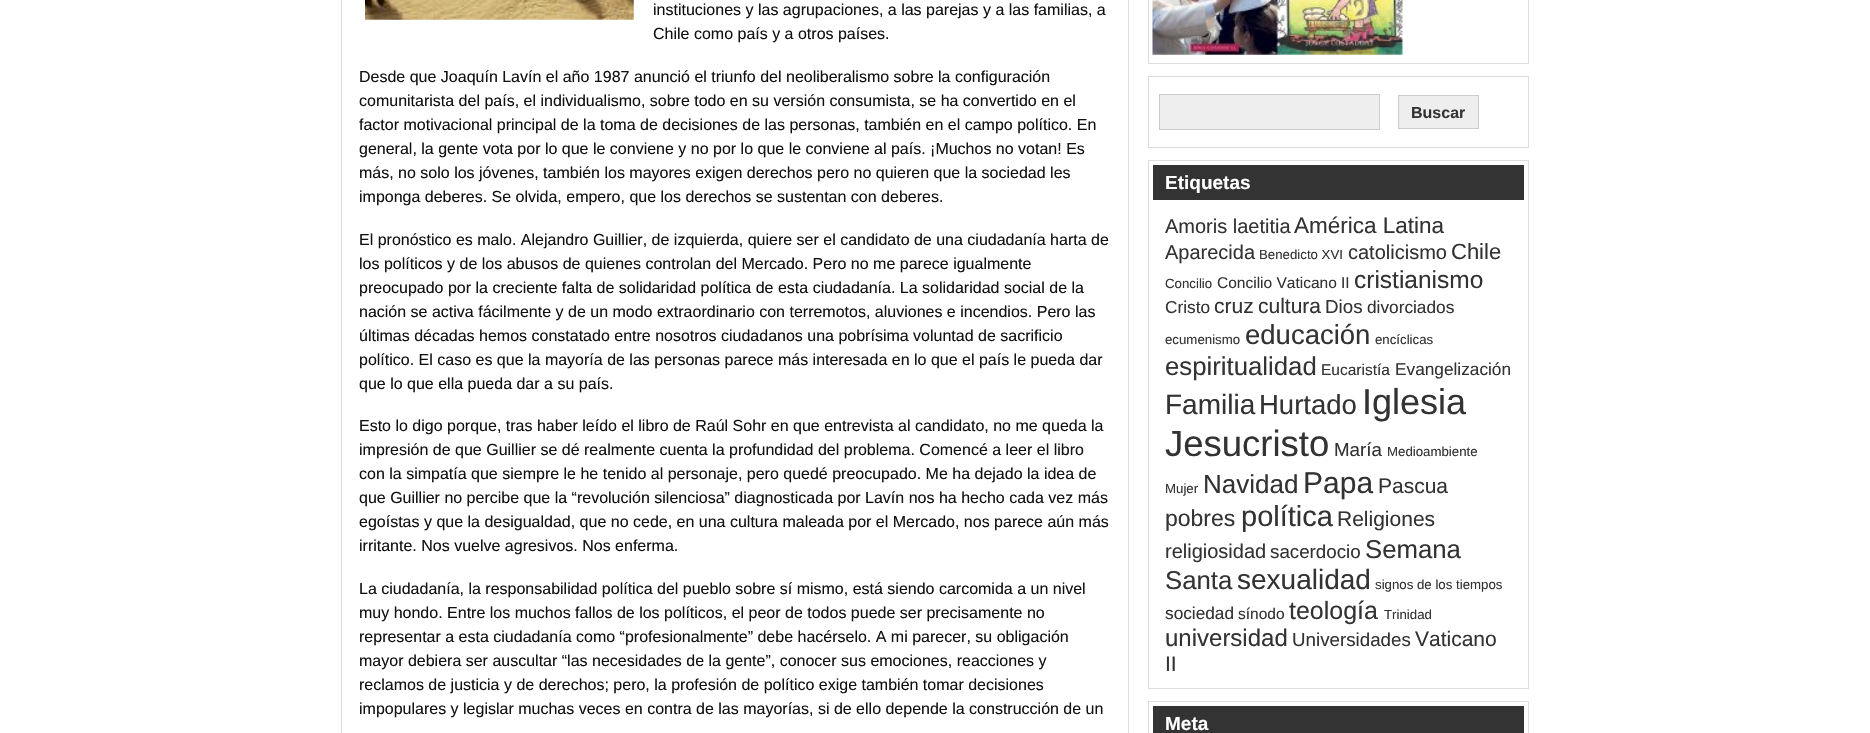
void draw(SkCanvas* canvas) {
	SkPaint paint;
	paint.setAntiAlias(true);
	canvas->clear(0xffffffff);
	paint.setStroke(true);
	paint.setStrokeWidth(1);
	paint.setColor(0xffdddddd);
	canvas->drawRect(SkRect::MakeXYWH(341.5, -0.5, 787, 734), paint);
	canvas->drawImageRect(SkImages::DeferredFromEncodedData(SkData::MakeFromFileName("img1.png")), SkRect::MakeXYWH(365, 0, 269, 20), SkSamplingOptions());
	SkFont f1(fontMgr->matchFamilyStyle("Liberation Sans", SkFontStyle::Normal()), 16);
	f1.setSubpixel(true);
	paint.setStroke(false);
	paint.setColor(0xff111111);
	canvas->drawString("instituciones y las agrupaciones, a las parejas y a las familias, a", 653, 15, f1, paint);
	canvas->drawString("Chile como país y a otros países.", 653, 39, f1, paint);
	canvas->drawString("Desde que Joaquín Lavín el año 1987 anunció el triunfo del neoliberalismo sobre la configuración", 359, 82, f1, paint);
	canvas->drawString("comunitarista del país, el individualismo, sobre todo en su versión consumista, se ha convertido en el", 359, 106, f1, paint);
	canvas->drawString("factor motivacional principal de la toma de decisiones de las personas, también en el campo político. En", 359, 130, f1, paint);
	canvas->drawString("general, la gente vota por lo que le conviene y no por lo que le conviene al país. ¡Muchos no votan! Es", 359, 154, f1, paint);
	canvas->drawString("más, no solo los jóvenes, también los mayores exigen derechos pero no quieren que la sociedad les", 359, 178, f1, paint);
	canvas->drawString("imponga deberes. Se olvida, empero, que los derechos se sustentan con deberes.", 359, 202, f1, paint);
	canvas->drawString("El pronóstico es malo. Alejandro Guillier, de izquierda, quiere ser el candidato de una ciudadanía harta de", 359, 245, f1, paint);
	canvas->drawString("los políticos y de los abusos de quienes controlan del Mercado. Pero no me parece igualmente", 359, 269, f1, paint);
	canvas->drawString("preocupado por la creciente falta de solidaridad política de esta ciudadanía. La solidaridad social de la", 359, 293, f1, paint);
	canvas->drawString("nación se activa fácilmente y de un modo extraordinario con terremotos, aluviones e incendios. Pero las", 359, 317, f1, paint);
	canvas->drawString("últimas décadas hemos constatado entre nosotros ciudadanos una pobrísima voluntad de sacrificio", 359, 341, f1, paint);
	canvas->drawString("político. El caso es que la mayoría de las personas parece más interesada en lo que el país le pueda dar", 359, 365, f1, paint);
	canvas->drawString("que lo que ella pueda dar a su país.", 359, 389, f1, paint);
	canvas->drawString("Esto lo digo porque, tras haber leído el libro de Raúl Sohr en que entrevista al candidato, no me queda la", 359, 431, f1, paint);
	canvas->drawString("impresión de que Guillier se dé realmente cuenta la profundidad del problema. Comencé a leer el libro", 359, 455, f1, paint);
	canvas->drawString("con la simpatía que siempre le he tenido al personaje, pero quedé preocupado. Me ha dejado la idea de", 359, 479, f1, paint);
	canvas->drawString("que Guillier no percibe que la “revolución silenciosa” diagnosticada por Lavín nos ha hecho cada vez más", 359, 503, f1, paint);
	canvas->drawString("egoístas y que la desigualdad, que no cede, en una cultura maleada por el Mercado, nos parece aún más", 359, 527, f1, paint);
	canvas->drawString("irritante. Nos vuelve agresivos. Nos enferma.", 359, 551, f1, paint);
	canvas->drawString("La ciudadanía, la responsabilidad política del pueblo sobre sí mismo, está siendo carcomida a un nivel", 359, 594, f1, paint);
	canvas->drawString("muy hondo. Entre los muchos fallos de los políticos, el peor de todos puede ser precisamente no", 359, 618, f1, paint);
	canvas->drawString("representar a esta ciudadanía como “profesionalmente” debe hacérselo. A mi parecer, su obligación", 359, 642, f1, paint);
	canvas->drawString("mayor debiera ser auscultar “las necesidades de la gente”, conocer sus emociones, reacciones y", 359, 666, f1, paint);
	canvas->drawString("reclamos de justicia y de derechos; pero, la profesión de político exige también tomar decisiones", 359, 690, f1, paint);
	canvas->drawString("impopulares y legislar muchas veces en contra de las mayorías, si de ello depende la construcción de un", 359, 714, f1, paint);
	paint.setStroke(true);
	paint.setColor(0xffdddddd);
	canvas->drawRect(SkRect::MakeXYWH(1148.5, -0.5, 380, 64), paint);
	canvas->drawImageRect(SkImages::DeferredFromEncodedData(SkData::MakeFromFileName("img2.png")), SkRect::MakeXYWH(1152, 0, 251, 55), SkSamplingOptions());
	canvas->drawRect(SkRect::MakeXYWH(1148.5, 76.5, 380, 71), paint);
	paint.setStroke(false);
	paint.setColor(0xffeeeeee);
	canvas->drawRect(SkRect::MakeXYWH(1159.5, 94.5, 220, 35), paint);
	paint.setStroke(true);
	paint.setColor(0xffcccccc);
	canvas->drawRect(SkRect::MakeXYWH(1159.5, 94.5, 220, 35), paint);
	paint.setStroke(false);
	paint.setColor(0xffeeeeee);
	canvas->drawRect(SkRect::MakeXYWH(1398.5, 95.5, 80, 33), paint);
	paint.setStroke(true);
	paint.setColor(0xffcccccc);
	canvas->drawRect(SkRect::MakeXYWH(1398.5, 95.5, 80, 33), paint);
	SkFont f2(fontMgr->matchFamilyStyle("Liberation Sans", SkFontStyle::Bold()), 16);
	f2.setSubpixel(true);
	paint.setStroke(false);
	paint.setColor(0xff333333);
	canvas->drawString("Buscar", 1411, 118, f2, paint);
	paint.setStroke(true);
	paint.setColor(0xffdddddd);
	canvas->drawRect(SkRect::MakeXYWH(1148.5, 160.5, 380, 528), paint);
	paint.setStroke(false);
	paint.setColor(0xff333333);
	canvas->drawRect(SkRect::MakeXYWH(1153, 165, 371, 35), paint);
	SkFont f3(fontMgr->matchFamilyStyle("Liberation Sans", SkFontStyle::Bold()), 19);
	f3.setSubpixel(true);
	paint.setColor(0xffffffff);
	canvas->drawString("Etiquetas", 1165, 189, f3, paint);
	SkFont f4(fontMgr->matchFamilyStyle("Liberation Sans", SkFontStyle::Normal()), 20);
	f4.setSubpixel(true);
	paint.setColor(0xff333333);
	canvas->drawString("Amoris laetitia", 1165, 233, f4, paint);
	SkFont f5(fontMgr->matchFamilyStyle("Liberation Sans", SkFontStyle::Normal()), 22.5);
	f5.setSubpixel(true);
	canvas->drawString("América Latina", 1294, 233, f5, paint);
	canvas->drawString("Aparecida", 1165, 259, f4, paint);
	SkFont f6(fontMgr->matchFamilyStyle("Liberation Sans", SkFontStyle::Normal()), 13.25);
	f6.setSubpixel(true);
	canvas->drawString("Benedicto XVI", 1259, 259, f6, paint);
	canvas->drawString("catolicismo", 1348, 259, f4, paint);
	SkFont f7(fontMgr->matchFamilyStyle("Liberation Sans", SkFontStyle::Normal()), 22);
	f7.setSubpixel(true);
	canvas->drawString("Chile", 1451, 259, f7, paint);
	canvas->drawString("Concilio", 1165, 288, f6, paint);
	SkFont f8(fontMgr->matchFamilyStyle("Liberation Sans", SkFontStyle::Normal()), 15.5);
	f8.setSubpixel(true);
	canvas->drawString("Concilio Vaticano II", 1217, 288, f8, paint);
	SkFont f9(fontMgr->matchFamilyStyle("Liberation Sans", SkFontStyle::Normal()), 24.5);
	f9.setSubpixel(true);
	canvas->drawString("cristianismo", 1354, 288, f9, paint);
	SkFont f10(fontMgr->matchFamilyStyle("Liberation Sans", SkFontStyle::Normal()), 17.25);
	f10.setSubpixel(true);
	canvas->drawString("Cristo", 1165, 313, f10, paint);
	SkFont f11(fontMgr->matchFamilyStyle("Liberation Sans", SkFontStyle::Normal()), 21);
	f11.setSubpixel(true);
	canvas->drawString("cruz", 1214, 313, f11, paint);
	canvas->drawString("cultura", 1258, 313, f11, paint);
	SkFont f12(fontMgr->matchFamilyStyle("Liberation Sans", SkFontStyle::Normal()), 18.75);
	f12.setSubpixel(true);
	canvas->drawString("Dios", 1325, 313, f12, paint);
	canvas->drawString("divorciados", 1367, 313, f10, paint);
	canvas->drawString("ecumenismo", 1165, 344, f6, paint);
	SkFont f13(fontMgr->matchFamilyStyle("Liberation Sans", SkFontStyle::Normal()), 27.5);
	f13.setSubpixel(true);
	canvas->drawString("educación", 1245, 344, f13, paint);
	canvas->drawString("encíclicas", 1375, 344, f6, paint);
	SkFont f14(fontMgr->matchFamilyStyle("Liberation Sans", SkFontStyle::Normal()), 25.75);
	f14.setSubpixel(true);
	canvas->drawString("espiritualidad", 1165, 375, f14, paint);
	canvas->drawString("Eucaristía", 1321, 375, f8, paint);
	canvas->drawString("Evangelización", 1395, 375, f10, paint);
	SkFont f15(fontMgr->matchFamilyStyle("Liberation Sans", SkFontStyle::Normal()), 28);
	f15.setSubpixel(true);
	canvas->drawString("Familia", 1165, 414, f15, paint);
	canvas->drawString("Hurtado", 1259, 414, f13, paint);
	SkFont f16(fontMgr->matchFamilyStyle("Liberation Sans", SkFontStyle::Normal()), 36);
	f16.setSubpixel(true);
	canvas->drawString("Iglesia", 1362, 414, f16, paint);
	SkFont f17(fontMgr->matchFamilyStyle("Liberation Sans", SkFontStyle::Normal()), 36.5);
	f17.setSubpixel(true);
	canvas->drawString("Jesucristo", 1165, 456, f17, paint);
	canvas->drawString("María", 1334, 456, f12, paint);
	canvas->drawString("Medioambiente", 1387, 456, f6, paint);
	canvas->drawString("Mujer", 1165, 493, f6, paint);
	SkFont f18(fontMgr->matchFamilyStyle("Liberation Sans", SkFontStyle::Normal()), 26);
	f18.setSubpixel(true);
	canvas->drawString("Navidad", 1203, 493, f18, paint);
	SkFont f19(fontMgr->matchFamilyStyle("Liberation Sans", SkFontStyle::Normal()), 30);
	f19.setSubpixel(true);
	canvas->drawString("Papa", 1303, 493, f19, paint);
	canvas->drawString("Pascua", 1378, 493, f11, paint);
	SkFont f20(fontMgr->matchFamilyStyle("Liberation Sans", SkFontStyle::Normal()), 23);
	f20.setSubpixel(true);
	canvas->drawString("pobres", 1165, 526, f20, paint);
	SkFont f21(fontMgr->matchFamilyStyle("Liberation Sans", SkFontStyle::Normal()), 29);
	f21.setSubpixel(true);
	canvas->drawString("política", 1241, 526, f21, paint);
	canvas->drawString("Religiones", 1337, 526, f11, paint);
	canvas->drawString("religiosidad", 1165, 558, f4, paint);
	canvas->drawString("sacerdocio", 1270, 558, f12, paint);
	canvas->drawString("Semana", 1365, 558, f14, paint);
	canvas->drawString("Santa", 1165, 589, f14, paint);
	canvas->drawString("sexualidad", 1237, 589, f15, paint);
	canvas->drawString("signos de los tiempos", 1375, 589, f6, paint);
	canvas->drawString("sociedad", 1165, 619, f10, paint);
	canvas->drawString("sínodo", 1238, 619, f8, paint);
	SkFont f22(fontMgr->matchFamilyStyle("Liberation Sans", SkFontStyle::Normal()), 25);
	f22.setSubpixel(true);
	canvas->drawString("teología", 1289, 619, f22, paint);
	canvas->drawString("Trinidad", 1384, 619, f6, paint);
	SkFont f23(fontMgr->matchFamilyStyle("Liberation Sans", SkFontStyle::Normal()), 24);
	f23.setSubpixel(true);
	canvas->drawString("universidad", 1165, 646, f23, paint);
	canvas->drawString("Universidades", 1292, 646, f12, paint);
	canvas->drawString("Vaticano", 1415, 646, f11, paint);
	canvas->drawString("II", 1165, 671, f11, paint);
	paint.setStroke(true);
	paint.setColor(0xffdddddd);
	canvas->drawRect(SkRect::MakeXYWH(1148.5, 701.5, 380, 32), paint);
	paint.setStroke(false);
	paint.setColor(0xff333333);
	canvas->drawRect(SkRect::MakeXYWH(1153, 706, 371, 27), paint);
	paint.setColor(0xffffffff);
	canvas->drawString("Meta", 1165, 730, f3, paint);
}
